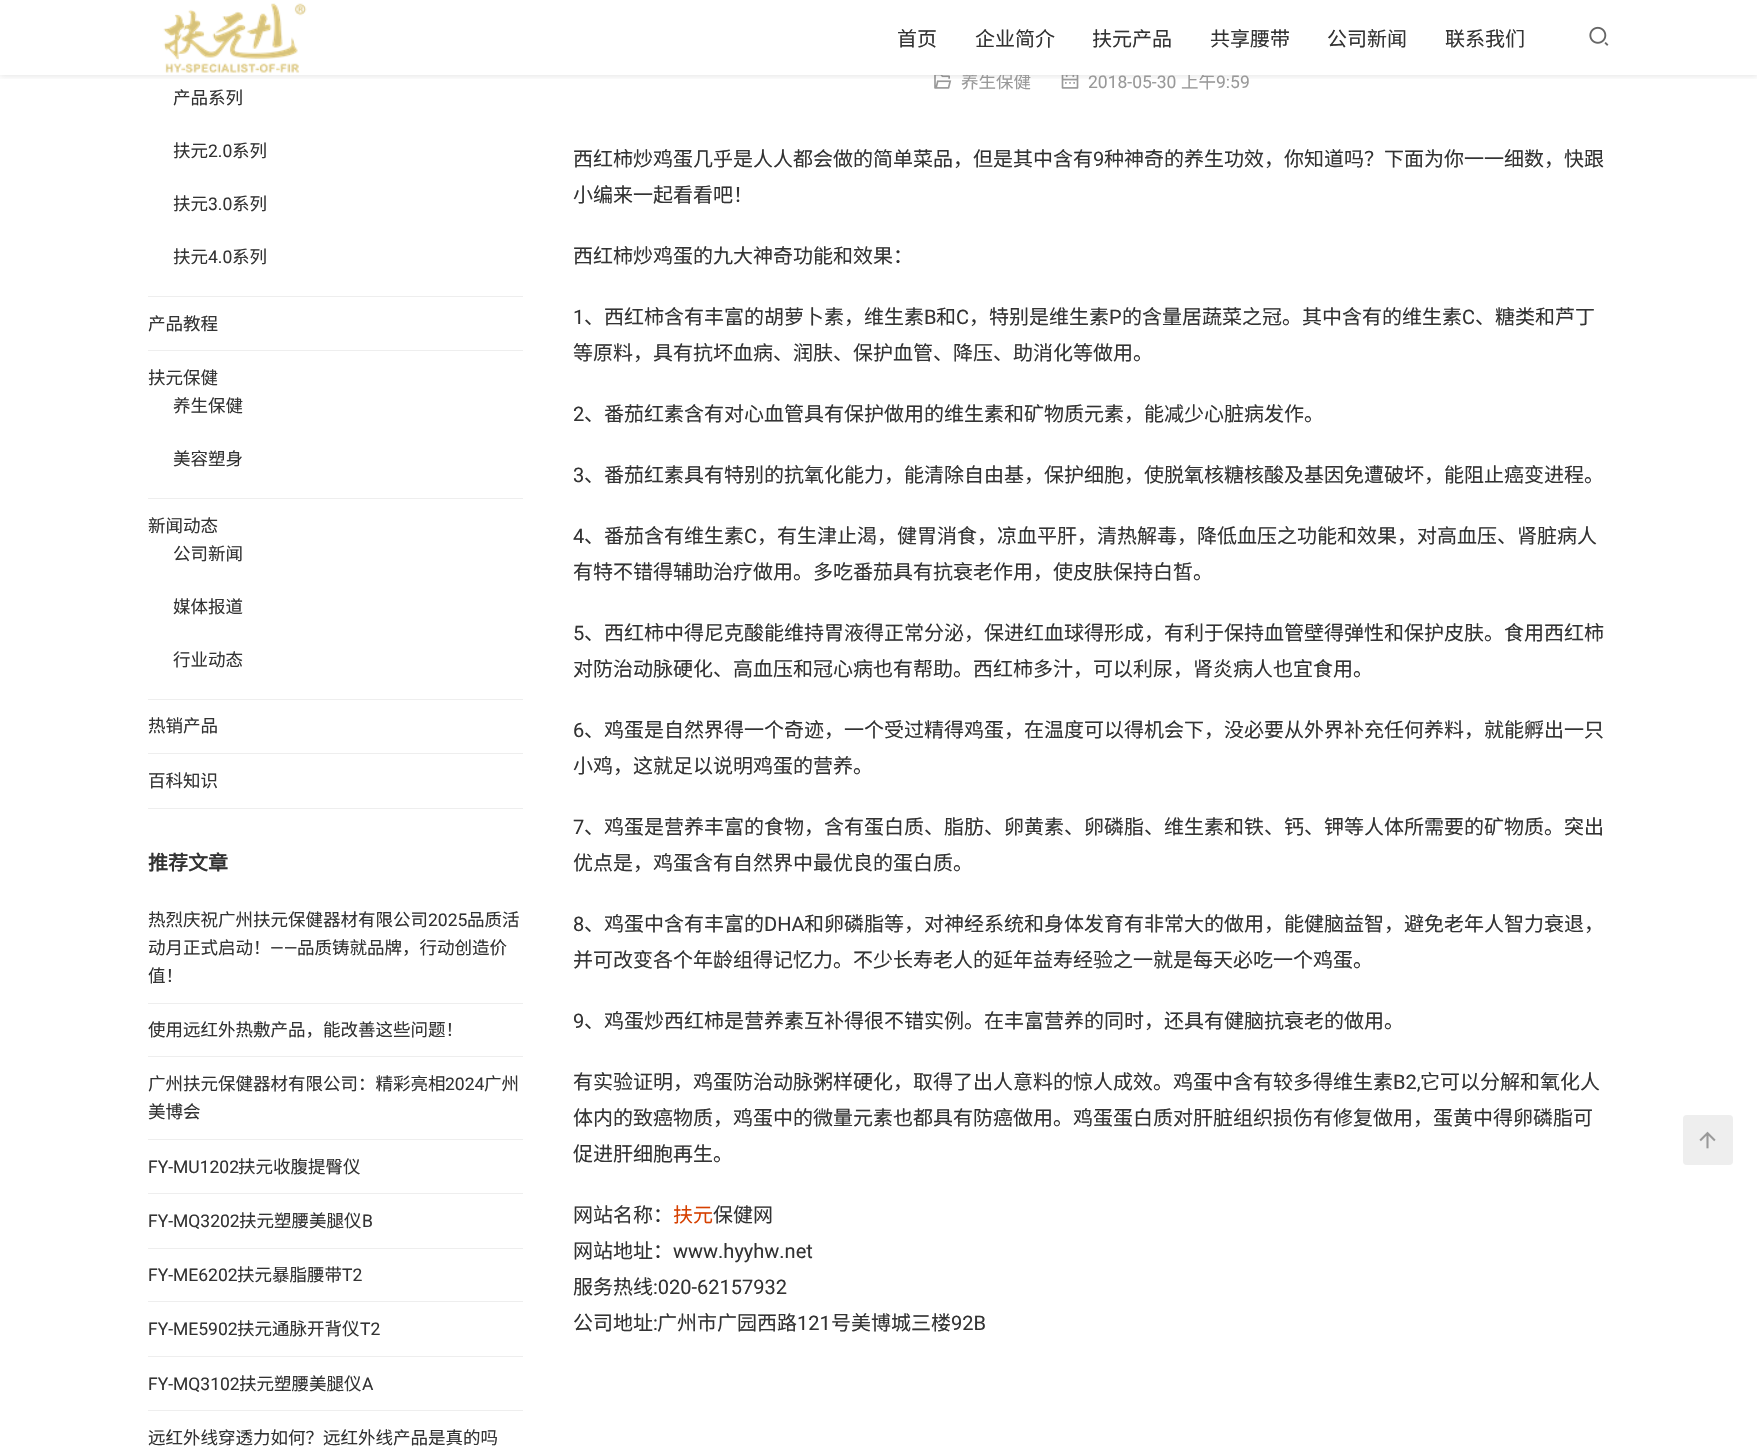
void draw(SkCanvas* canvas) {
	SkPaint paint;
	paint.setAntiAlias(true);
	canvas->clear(0xffffffff);
	canvas->drawImageRect(SkImages::DeferredFromEncodedData(SkData::MakeFromFileName("img3.png")), SkRect::MakeXYWH(934, 73, 18, 16), SkSamplingOptions());
	canvas->drawImageRect(SkImages::DeferredFromEncodedData(SkData::MakeFromFileName("img4.png")), SkRect::MakeXYWH(1061, 72, 18, 17), SkSamplingOptions());
	canvas->save();
	canvas->clipRect(SkRect::MakeXYWH(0, 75, 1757, 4));
	paint.setColor(0x1a000000);
	paint.setMaskFilter(SkMaskFilter::MakeBlur(kNormal_SkBlurStyle, 3));
	canvas->drawRect(SkRect::MakeXYWH(0, 1, 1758, 75), paint);
	paint.setMaskFilter(nullptr);
	canvas->restore();
	SkFont f1(fontMgr->matchFamilyStyle("Noto Sans CJK SC", SkFontStyle::Normal()), 17.5);
	f1.setSubpixel(true);
	paint.setColor(0xff999999);
	canvas->drawString("养生保健", 961, 88, f1, paint);
	canvas->drawString("上午", 1181, 88, f1, paint);
	paint.setColor(0xf7ffffff);
	canvas->drawRect(SkRect::MakeXYWH(934, 72, 271, 3), paint);
	canvas->drawImageRect(SkImages::DeferredFromEncodedData(SkData::MakeFromFileName("img1.png")), SkRect::MakeXYWH(163, 3, 144, 70), SkSamplingOptions());
	SkFont f2(fontMgr->matchFamilyStyle("Noto Sans CJK SC", SkFontStyle::Normal()), 20);
	f2.setSubpixel(true);
	paint.setColor(0xff333333);
	canvas->drawString("首页", 897, 46, f2, paint);
	canvas->drawString("企业简介", 975, 46, f2, paint);
	canvas->drawString("扶元产品", 1092, 46, f2, paint);
	canvas->drawString("共享腰带", 1210, 46, f2, paint);
	canvas->drawString("公司新闻", 1327, 46, f2, paint);
	canvas->drawString("联系我们", 1445, 46, f2, paint);
	canvas->drawImageRect(SkImages::DeferredFromEncodedData(SkData::MakeFromFileName("img2.png")), SkRect::MakeXYWH(1589, 26, 20, 20), SkSamplingOptions());
	paint.setColor(0xffeeeeee);
	canvas->drawRect(SkRect::MakeXYWH(148, 296, 375, 1), paint);
	paint.setColor(0xff333333);
	canvas->drawString("产品系列", 173, 104, f1, paint);
	canvas->drawString("扶元", 173, 157, f1, paint);
	SkFont f3(fontMgr->matchFamilyStyle("Roboto", SkFontStyle::Normal()), 17.5);
	f3.setSubpixel(true);
	canvas->drawString("2.0", 208, 157, f3, paint);
	canvas->drawString("系列", 232, 157, f1, paint);
	canvas->drawString("扶元", 173, 210, f1, paint);
	canvas->drawString("3.0", 208, 210, f3, paint);
	canvas->drawString("系列", 232, 210, f1, paint);
	canvas->drawString("扶元", 173, 263, f1, paint);
	canvas->drawString("4.0", 208, 263, f3, paint);
	canvas->drawString("系列", 232, 263, f1, paint);
	paint.setColor(0xffeeeeee);
	canvas->drawRect(SkRect::MakeXYWH(148, 350, 375, 1), paint);
	paint.setColor(0xff333333);
	canvas->drawString("产品教程", 148, 330, f1, paint);
	paint.setColor(0xffeeeeee);
	canvas->drawRect(SkRect::MakeXYWH(148, 498, 375, 1), paint);
	paint.setColor(0xff333333);
	canvas->drawString("扶元保健", 148, 384, f1, paint);
	canvas->drawString("养生保健", 173, 412, f1, paint);
	canvas->drawString("美容塑身", 173, 465, f1, paint);
	paint.setColor(0xffeeeeee);
	canvas->drawRect(SkRect::MakeXYWH(148, 699, 375, 1), paint);
	paint.setColor(0xff333333);
	canvas->drawString("新闻动态", 148, 532, f1, paint);
	canvas->drawString("公司新闻", 173, 560, f1, paint);
	canvas->drawString("媒体报道", 173, 613, f1, paint);
	canvas->drawString("行业动态", 173, 666, f1, paint);
	paint.setColor(0xffeeeeee);
	canvas->drawRect(SkRect::MakeXYWH(148, 753, 375, 1), paint);
	paint.setColor(0xff333333);
	canvas->drawString("热销产品", 148, 732, f1, paint);
	paint.setColor(0xffeeeeee);
	canvas->drawRect(SkRect::MakeXYWH(148, 808, 375, 1), paint);
	paint.setColor(0xff333333);
	canvas->drawString("百科知识", 148, 787, f1, paint);
	SkFont f4(fontMgr->matchFamilyStyle("Noto Sans CJK SC", SkFontStyle::Bold()), 20);
	f4.setSubpixel(true);
	canvas->drawString("推荐文章", 148, 870, f4, paint);
	paint.setColor(0xffeeeeee);
	canvas->drawRect(SkRect::MakeXYWH(148, 1003, 375, 1), paint);
	paint.setColor(0xff333333);
	canvas->drawString("热烈庆祝广州扶元保健器材有限公司", 148, 926, f1, paint);
	canvas->drawString("2025", 428, 926, f3, paint);
	canvas->drawString("品质活", 467, 926, f1, paint);
	canvas->drawString("动月正式启动！", 148, 954, f1, paint);
	canvas->drawString("——", 270, 954, f3, paint);
	canvas->drawString("品质铸就品牌，行动创造价", 297, 954, f1, paint);
	canvas->drawString("值！", 148, 982, f1, paint);
	paint.setColor(0xffeeeeee);
	canvas->drawRect(SkRect::MakeXYWH(148, 1056, 375, 1), paint);
	paint.setColor(0xff333333);
	canvas->drawString("使用远红外热敷产品，能改善这些问题！", 148, 1036, f1, paint);
	paint.setColor(0xffeeeeee);
	canvas->drawRect(SkRect::MakeXYWH(148, 1139, 375, 1), paint);
	paint.setColor(0xff333333);
	canvas->drawString("广州扶元保健器材有限公司：精彩亮相", 148, 1090, f1, paint);
	canvas->drawString("2024", 445, 1090, f3, paint);
	canvas->drawString("广州", 484, 1090, f1, paint);
	canvas->drawString("美博会", 148, 1118, f1, paint);
	paint.setColor(0xffeeeeee);
	canvas->drawRect(SkRect::MakeXYWH(148, 1193, 375, 1), paint);
	paint.setColor(0xff333333);
	canvas->drawString("FY-MU1202", 148, 1173, f3, paint);
	canvas->drawString("扶元收腹提臀仪", 238, 1173, f1, paint);
	paint.setColor(0xffeeeeee);
	canvas->drawRect(SkRect::MakeXYWH(148, 1248, 375, 1), paint);
	paint.setColor(0xff333333);
	canvas->drawString("FY-MQ3202", 148, 1227, f3, paint);
	canvas->drawString("扶元塑腰美腿仪", 239, 1227, f1, paint);
	canvas->drawString("B", 362, 1227, f3, paint);
	paint.setColor(0xffeeeeee);
	canvas->drawRect(SkRect::MakeXYWH(148, 1301, 375, 1), paint);
	paint.setColor(0xff333333);
	canvas->drawString("FY-ME6202", 148, 1281, f3, paint);
	canvas->drawString("扶元暴脂腰带", 237, 1281, f1, paint);
	canvas->drawString("T2", 342, 1281, f3, paint);
	paint.setColor(0xffeeeeee);
	canvas->drawRect(SkRect::MakeXYWH(148, 1356, 375, 1), paint);
	paint.setColor(0xff333333);
	canvas->drawString("FY-ME5902", 148, 1335, f3, paint);
	canvas->drawString("扶元通脉开背仪", 237, 1335, f1, paint);
	canvas->drawString("T2", 360, 1335, f3, paint);
	paint.setColor(0xffeeeeee);
	canvas->drawRect(SkRect::MakeXYWH(148, 1410, 375, 1), paint);
	paint.setColor(0xff333333);
	canvas->drawString("FY-MQ3102", 148, 1390, f3, paint);
	canvas->drawString("扶元塑腰美腿仪", 239, 1390, f1, paint);
	canvas->drawString("A", 362, 1390, f3, paint);
	canvas->drawString("远红外线穿透力如何？远红外线产品是真的吗", 148, 1444, f1, paint);
	paint.setColor(0xff999999);
	canvas->drawString("2018-05-30", 1088, 88, f3, paint);
	canvas->drawString("9:59", 1216, 88, f3, paint);
	paint.setColor(0xff333333);
	canvas->drawString("西红柿炒鸡蛋几乎是人人都会做的简单菜品，但是其中含有", 573, 166, f2, paint);
	SkFont f5(fontMgr->matchFamilyStyle("Roboto", SkFontStyle::Normal()), 20);
	f5.setSubpixel(true);
	canvas->drawString("9", 1093, 166, f5, paint);
	canvas->drawString("种神奇的养生功效，你知道吗？下面为你一一细数，快跟", 1104, 166, f2, paint);
	canvas->drawString("小编来一起看看吧！", 573, 202, f2, paint);
	canvas->drawString("西红柿炒鸡蛋的九大神奇功能和效果：", 573, 263, f2, paint);
	canvas->drawString("1", 573, 324, f5, paint);
	canvas->drawString("、西红柿含有丰富的胡萝卜素，维生素", 584, 324, f2, paint);
	canvas->drawString("B", 924, 324, f5, paint);
	canvas->drawString("和", 936, 324, f2, paint);
	canvas->drawString("C", 956, 324, f5, paint);
	canvas->drawString("，特别是维生素", 969, 324, f2, paint);
	canvas->drawString("P", 1109, 324, f5, paint);
	canvas->drawString("的含量居蔬菜之冠。其中含有的维生素", 1122, 324, f2, paint);
	canvas->drawString("C", 1462, 324, f5, paint);
	canvas->drawString("、糖类和芦丁", 1475, 324, f2, paint);
	canvas->drawString("等原料，具有抗坏血病、润肤、保护血管、降压、助消化等做用。", 573, 360, f2, paint);
	canvas->drawString("2", 573, 421, f5, paint);
	canvas->drawString("、番茄红素含有对心血管具有保护做用的维生素和矿物质元素，能减少心脏病发作。", 584, 421, f2, paint);
	canvas->drawString("3", 573, 482, f5, paint);
	canvas->drawString("、番茄红素具有特别的抗氧化能力，能清除自由基，保护细胞，使脱氧核糖核酸及基因免遭破坏，能阻止癌变进程。", 584, 482, f2, paint);
	canvas->drawString("4", 573, 543, f5, paint);
	canvas->drawString("、番茄含有维生素", 584, 543, f2, paint);
	canvas->drawString("C", 744, 543, f5, paint);
	canvas->drawString("，有生津止渴，健胃消食，凉血平肝，清热解毒，降低血压之功能和效果，对高血压、肾脏病人", 757, 543, f2, paint);
	canvas->drawString("有特不错得辅助治疗做用。多吃番茄具有抗衰老作用，使皮肤保持白皙。", 573, 579, f2, paint);
	canvas->drawString("5", 573, 640, f5, paint);
	canvas->drawString("、西红柿中得尼克酸能维持胃液得正常分泌，保进红血球得形成，有利于保持血管壁得弹性和保护皮肤。食用西红柿", 584, 640, f2, paint);
	canvas->drawString("对防治动脉硬化、高血压和冠心病也有帮助。西红柿多汁，可以利尿，肾炎病人也宜食用。", 573, 676, f2, paint);
	canvas->drawString("6", 573, 737, f5, paint);
	canvas->drawString("、鸡蛋是自然界得一个奇迹，一个受过精得鸡蛋，在温度可以得机会下，没必要从外界补充任何养料，就能孵出一只", 584, 737, f2, paint);
	canvas->drawString("小鸡，这就足以说明鸡蛋的营养。", 573, 773, f2, paint);
	canvas->drawString("7", 573, 834, f5, paint);
	canvas->drawString("、鸡蛋是营养丰富的食物，含有蛋白质、脂肪、卵黄素、卵磷脂、维生素和铁、钙、钾等人体所需要的矿物质。突出", 584, 834, f2, paint);
	canvas->drawString("优点是，鸡蛋含有自然界中最优良的蛋白质。", 573, 870, f2, paint);
	canvas->drawString("8", 573, 931, f5, paint);
	canvas->drawString("、鸡蛋中含有丰富的", 584, 931, f2, paint);
	canvas->drawString("DHA", 764, 931, f5, paint);
	canvas->drawString("和卵磷脂等，对神经系统和身体发育有非常大的做用，能健脑益智，避免老年人智力衰退，", 804, 931, f2, paint);
	canvas->drawString("并可改变各个年龄组得记忆力。不少长寿老人的延年益寿经验之一就是每天必吃一个鸡蛋。", 573, 967, f2, paint);
	canvas->drawString("9", 573, 1028, f5, paint);
	canvas->drawString("、鸡蛋炒西红柿是营养素互补得很不错实例。在丰富营养的同时，还具有健脑抗衰老的做用。", 584, 1028, f2, paint);
	canvas->drawString("有实验证明，鸡蛋防治动脉粥样硬化，取得了出人意料的惊人成效。鸡蛋中含有较多得维生素", 573, 1089, f2, paint);
	canvas->drawString("B2,", 1393, 1089, f5, paint);
	canvas->drawString("它可以分解和氧化人", 1420, 1089, f2, paint);
	canvas->drawString("体内的致癌物质，鸡蛋中的微量元素也都具有防癌做用。鸡蛋蛋白质对肝脏组织损伤有修复做用，蛋黄中得卵磷脂可", 573, 1125, f2, paint);
	canvas->drawString("促进肝细胞再生。", 573, 1161, f2, paint);
	canvas->drawString("网站名称：", 573, 1222, f2, paint);
	paint.setColor(0xffd64000);
	canvas->drawString("扶元", 673, 1222, f2, paint);
	paint.setColor(0xff333333);
	canvas->drawString("保健网", 713, 1222, f2, paint);
	canvas->drawString("网站地址：", 573, 1258, f2, paint);
	canvas->drawString("www.hyyhw.net", 673, 1258, f5, paint);
	canvas->drawString("服务热线", 573, 1294, f2, paint);
	canvas->drawString(":020-62157932", 653, 1294, f5, paint);
	canvas->drawString("公司地址", 573, 1330, f2, paint);
	canvas->drawString(":", 653, 1330, f5, paint);
	canvas->drawString("广州市广园西路", 657, 1330, f2, paint);
	canvas->drawString("121", 797, 1330, f5, paint);
	canvas->drawString("号美博城三楼", 831, 1330, f2, paint);
	canvas->drawString("92B", 951, 1330, f5, paint);
	paint.setColor(0xffeeeeee);
	canvas->drawRoundRect(SkRect::MakeXYWH(1683, 1115, 50, 50), 4, 4, paint);
	canvas->drawImageRect(SkImages::DeferredFromEncodedData(SkData::MakeFromFileName("img5.png")), SkRect::MakeXYWH(1699, 1131, 17, 18), SkSamplingOptions());
}
